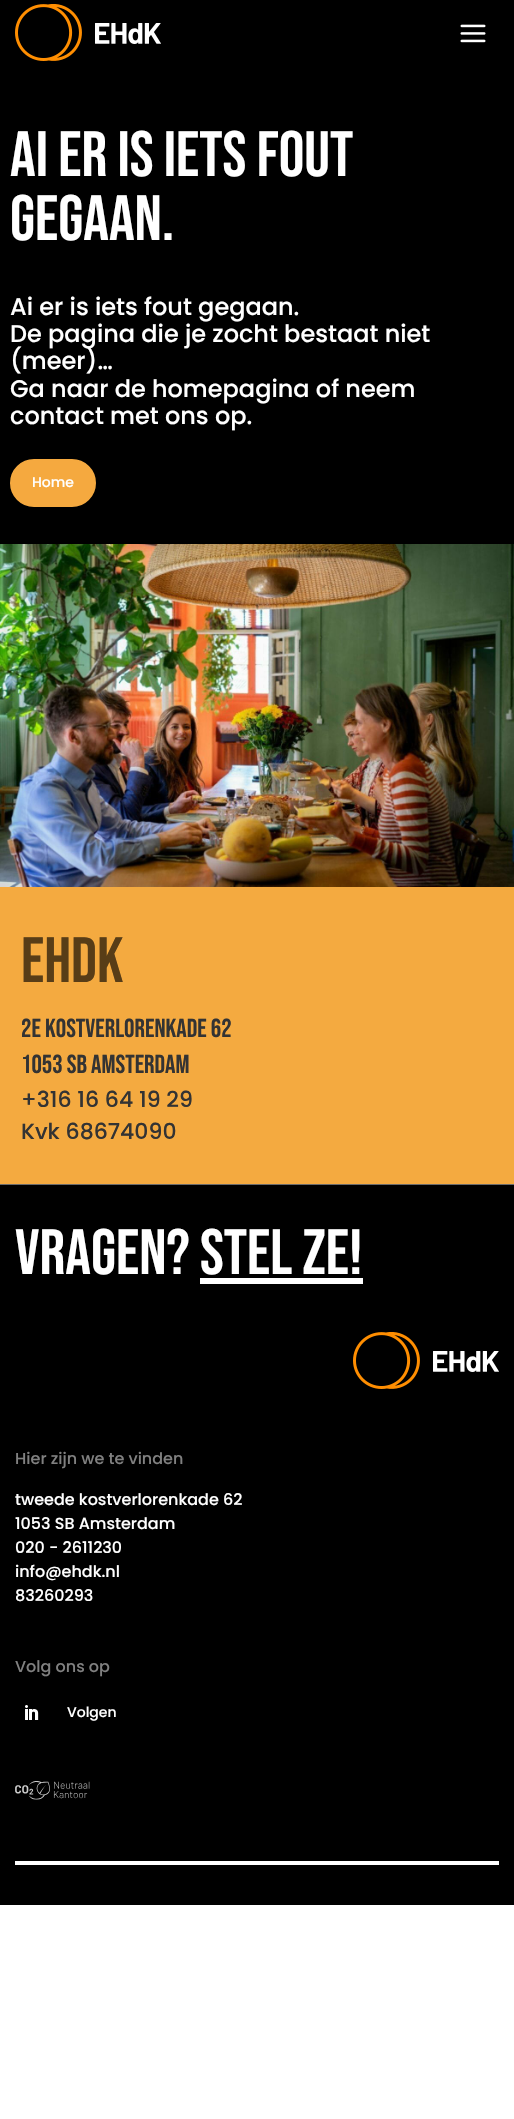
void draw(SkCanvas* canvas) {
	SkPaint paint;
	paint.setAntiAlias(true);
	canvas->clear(0xffffffff);
	paint.setColor(0xff000000);
	canvas->drawRect(SkRect::MakeXYWH(0, 0, 514, 544), paint);
	canvas->drawImageRect(SkImages::DeferredFromEncodedData(SkData::MakeFromFileName("img1.png")), SkRect::MakeXYWH(15, 4, 146, 57), SkSamplingOptions());
	canvas->drawImageRect(SkImages::DeferredFromEncodedData(SkData::MakeFromFileName("img2.png")), SkRect::MakeXYWH(460, 24, 26, 19), SkSamplingOptions());
	SkFont f1(fontMgr->matchFamilyStyle("Bebas Neue", SkFontStyle::Normal()), 64);
	f1.setSubpixel(true);
	paint.setColor(0xffffffff);
	canvas->drawString("AI ER IS IETS FOUT", 10, 176, f1, paint);
	canvas->drawString("GEGAAN.", 10, 240, f1, paint);
	SkFont f2(fontMgr->matchFamilyStyle("Poppins", SkFontStyle(500, SkFontStyle::kNormal_Width, SkFontStyle::kUpright_Slant)), 24);
	f2.setSubpixel(true);
	canvas->drawString("Ai er is iets fout gegaan.", 10, 315, f2, paint);
	canvas->drawString("De pagina die je zocht bestaat niet", 10, 342, f2, paint);
	canvas->drawString("(meer)…", 10, 369, f2, paint);
	canvas->drawString("Ga naar de homepagina of neem", 10, 397, f2, paint);
	canvas->drawString("contact met ons op.", 10, 424, f2, paint);
	paint.setColor(0xfff5a93f);
	canvas->drawRoundRect(SkRect::MakeXYWH(14, 463, 78, 40), 20, 20, paint);
	paint.setStroke(true);
	paint.setStrokeWidth(8);
	canvas->drawRoundRect(SkRect::MakeXYWH(14, 463, 78, 40), 20, 20, paint);
	SkFont f3(fontMgr->matchFamilyStyle("Poppins", SkFontStyle(500, SkFontStyle::kNormal_Width, SkFontStyle::kUpright_Slant)), 14);
	f3.setSubpixel(true);
	paint.setStroke(false);
	paint.setColor(0xffffffff);
	canvas->drawString("Home", 32, 487, f3, paint);
	paint.setColor(0xfff4aa40);
	canvas->drawRect(SkRect::MakeXYWH(0, 887, 514, 297), paint);
	canvas->drawImageRect(SkImages::DeferredFromEncodedData(SkData::MakeFromFileName("img3.png")), SkRect::MakeXYWH(0, 544, 514, 343), SkSamplingOptions());
	paint.setColor(0xff583d17);
	canvas->drawString("EHDK", 21, 982, f1, paint);
	SkFont f4(fontMgr->matchFamilyStyle("Bebas Neue", SkFontStyle::Normal()), 26);
	f4.setSubpixel(true);
	paint.setColor(0xff333333);
	canvas->drawString("2e Kostverlorenkade 62", 21, 1037, f4, paint);
	canvas->drawString("1053 SB Amsterdam", 21, 1073, f4, paint);
	SkFont f5(fontMgr->matchFamilyStyle("Poppins", SkFontStyle(500, SkFontStyle::kNormal_Width, SkFontStyle::kUpright_Slant)), 22);
	f5.setSubpixel(true);
	canvas->drawString("+316 16 64 19 29", 21, 1107, f5, paint);
	canvas->drawString("Kvk 68674090", 21, 1139, f5, paint);
	paint.setColor(0xff000000);
	canvas->drawRect(SkRect::MakeXYWH(0, 1185, 514, 720), paint);
	paint.setColor(0xff6b6b6b);
	canvas->drawRect(SkRect::MakeXYWH(0, 1184, 514, 1), paint);
	paint.setColor(0xffffffff);
	canvas->drawString("VRAGEN? STEL ZE!", 15, 1274, f1, paint);
	canvas->drawRect(SkRect::MakeXYWH(200, 1278, 163, 6), paint);
	canvas->drawImageRect(SkImages::DeferredFromEncodedData(SkData::MakeFromFileName("img1.png")), SkRect::MakeXYWH(353, 1332, 146, 57), SkSamplingOptions());
	SkFont f6(fontMgr->matchFamilyStyle("Poppins", SkFontStyle(500, SkFontStyle::kNormal_Width, SkFontStyle::kUpright_Slant)), 16);
	f6.setSubpixel(true);
	paint.setColor(0xff808080);
	canvas->drawString("Hier zijn we te vinden", 15, 1464, f6, paint);
	paint.setColor(0xffffffff);
	canvas->drawString("tweede kostverlorenkade 62", 15, 1505, f6, paint);
	canvas->drawString("1053 SB Amsterdam", 15, 1529, f6, paint);
	canvas->drawString("020 - 2611230", 15, 1553, f6, paint);
	canvas->drawString("info@ehdk.nl", 15, 1577, f6, paint);
	canvas->drawString("83260293", 15, 1601, f6, paint);
	paint.setColor(0xff808080);
	canvas->drawString("Volg ons op", 15, 1672, f6, paint);
	canvas->drawImageRect(SkImages::DeferredFromEncodedData(SkData::MakeFromFileName("img4.png")), SkRect::MakeXYWH(25, 1705, 14, 15), SkSamplingOptions());
	paint.setColor(0xffffffff);
	canvas->drawString("Volgen", 67, 1717, f3, paint);
	canvas->drawRect(SkRect::MakeXYWH(15, 1861, 484, 4), paint);
	canvas->drawImageRect(SkImages::DeferredFromEncodedData(SkData::MakeFromFileName("img5.png")), SkRect::MakeXYWH(15, 1781, 75, 19), SkSamplingOptions());
}
